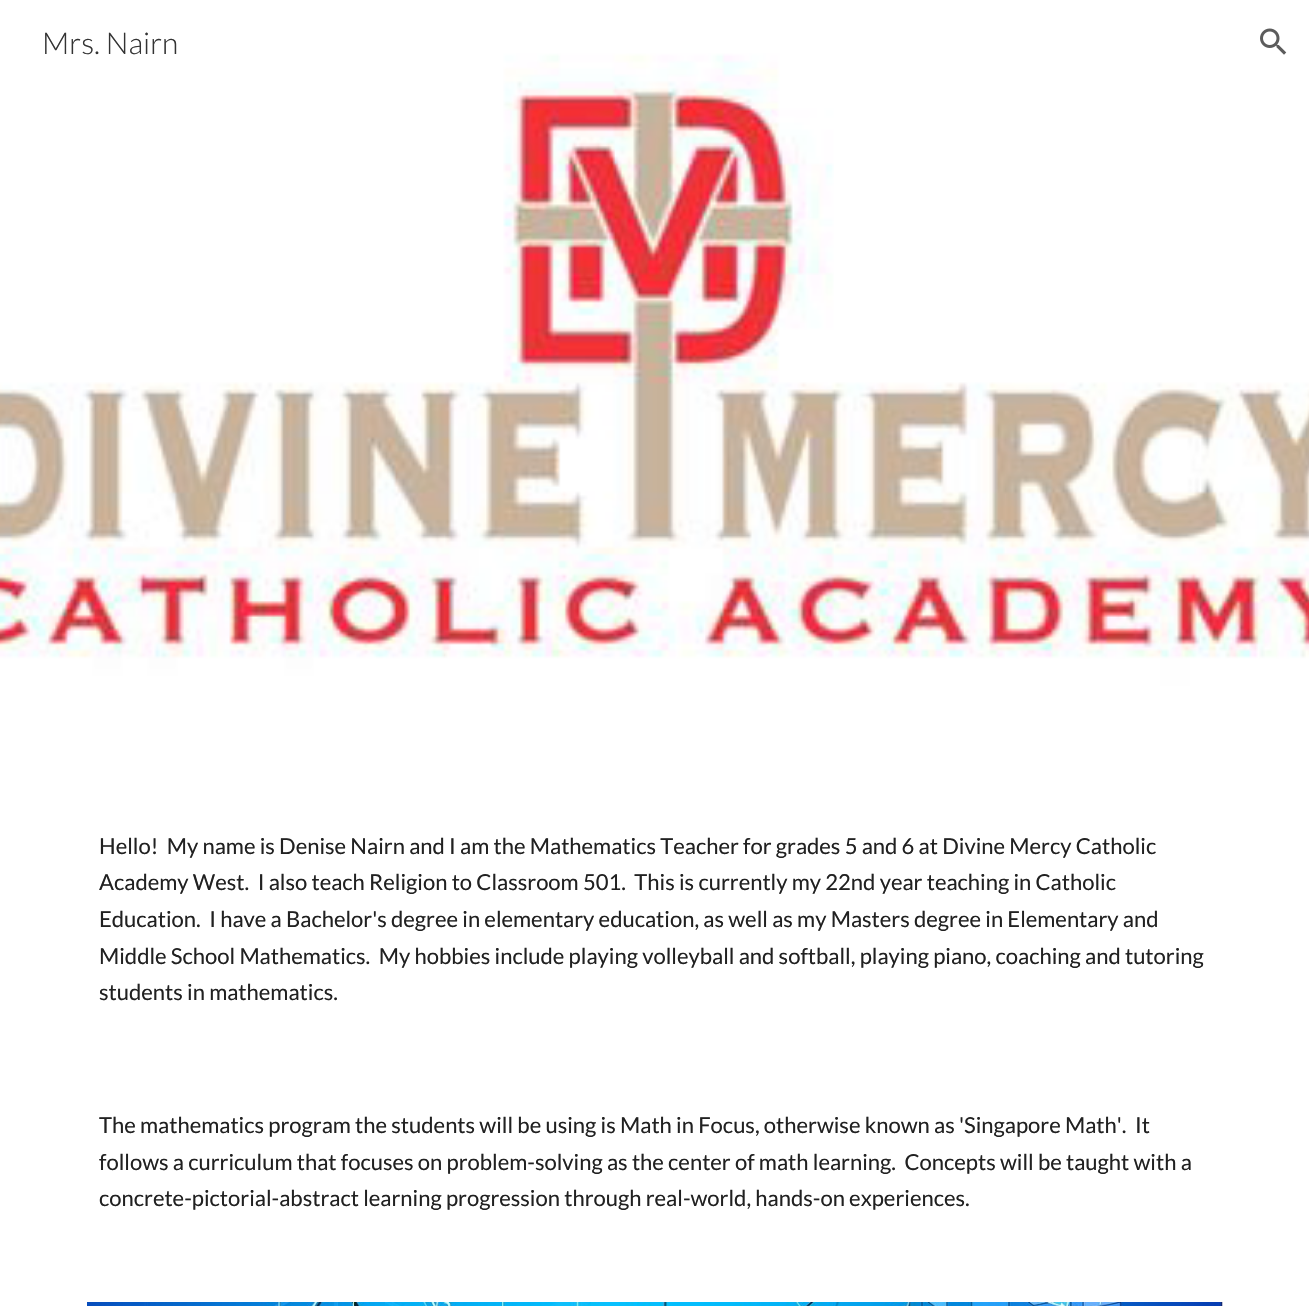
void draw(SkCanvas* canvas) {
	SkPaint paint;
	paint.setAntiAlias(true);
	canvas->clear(0xffffffff);
	canvas->drawImageRect(SkImages::DeferredFromEncodedData(SkData::MakeFromFileName("img2.png")), SkRect::MakeXYWH(0, 0, 1309, 780), SkSamplingOptions());
	SkFont f1(fontMgr->matchFamilyStyle("Lato", SkFontStyle(300, SkFontStyle::kNormal_Width, SkFontStyle::kUpright_Slant)), 30);
	f1.setSubpixel(true);
	paint.setColor(0xff333333);
	canvas->drawString("Mrs. Nairn", 42, 54, f1, paint);
	canvas->drawImageRect(SkImages::DeferredFromEncodedData(SkData::MakeFromFileName("img1.png")), SkRect::MakeXYWH(1260, 28, 27, 27), SkSamplingOptions());
	SkFont f2(fontMgr->matchFamilyStyle("Lato", SkFontStyle::Normal()), 22);
	f2.setSubpixel(true);
	paint.setColor(0xff212121);
	canvas->drawString("Hello!  My name is Denise Nairn and I am the Mathematics Teacher for grades 5 and 6 at Divine Mercy Catholic", 99, 854, f2, paint);
	canvas->drawString("Academy West.  I also teach Religion to Classroom 501.  This is currently my 22nd year teaching in Catholic", 99, 890, f2, paint);
	canvas->drawString("Education.  I have a Bachelor's degree in elementary education, as well as my Masters degree in Elementary and", 99, 927, f2, paint);
	canvas->drawString("Middle School Mathematics.  My hobbies include playing volleyball and softball, playing piano, coaching and tutoring", 99, 964, f2, paint);
	canvas->drawString("students in mathematics.", 99, 1000, f2, paint);
	canvas->drawString("The mathematics program the students will be using is Math in Focus, otherwise known as 'Singapore Math'.  It", 99, 1133, f2, paint);
	canvas->drawString("follows a curriculum that focuses on problem-solving as the center of math learning.  Concepts will be taught with a", 99, 1170, f2, paint);
	canvas->drawString("concrete-pictorial-abstract learning progression through real-world, hands-on experiences.", 99, 1206, f2, paint);
	canvas->drawImageRect(SkImages::DeferredFromEncodedData(SkData::MakeFromFileName("img3.png")), SkRect::MakeXYWH(87, 1302, 1136, 4), SkSamplingOptions());
}
